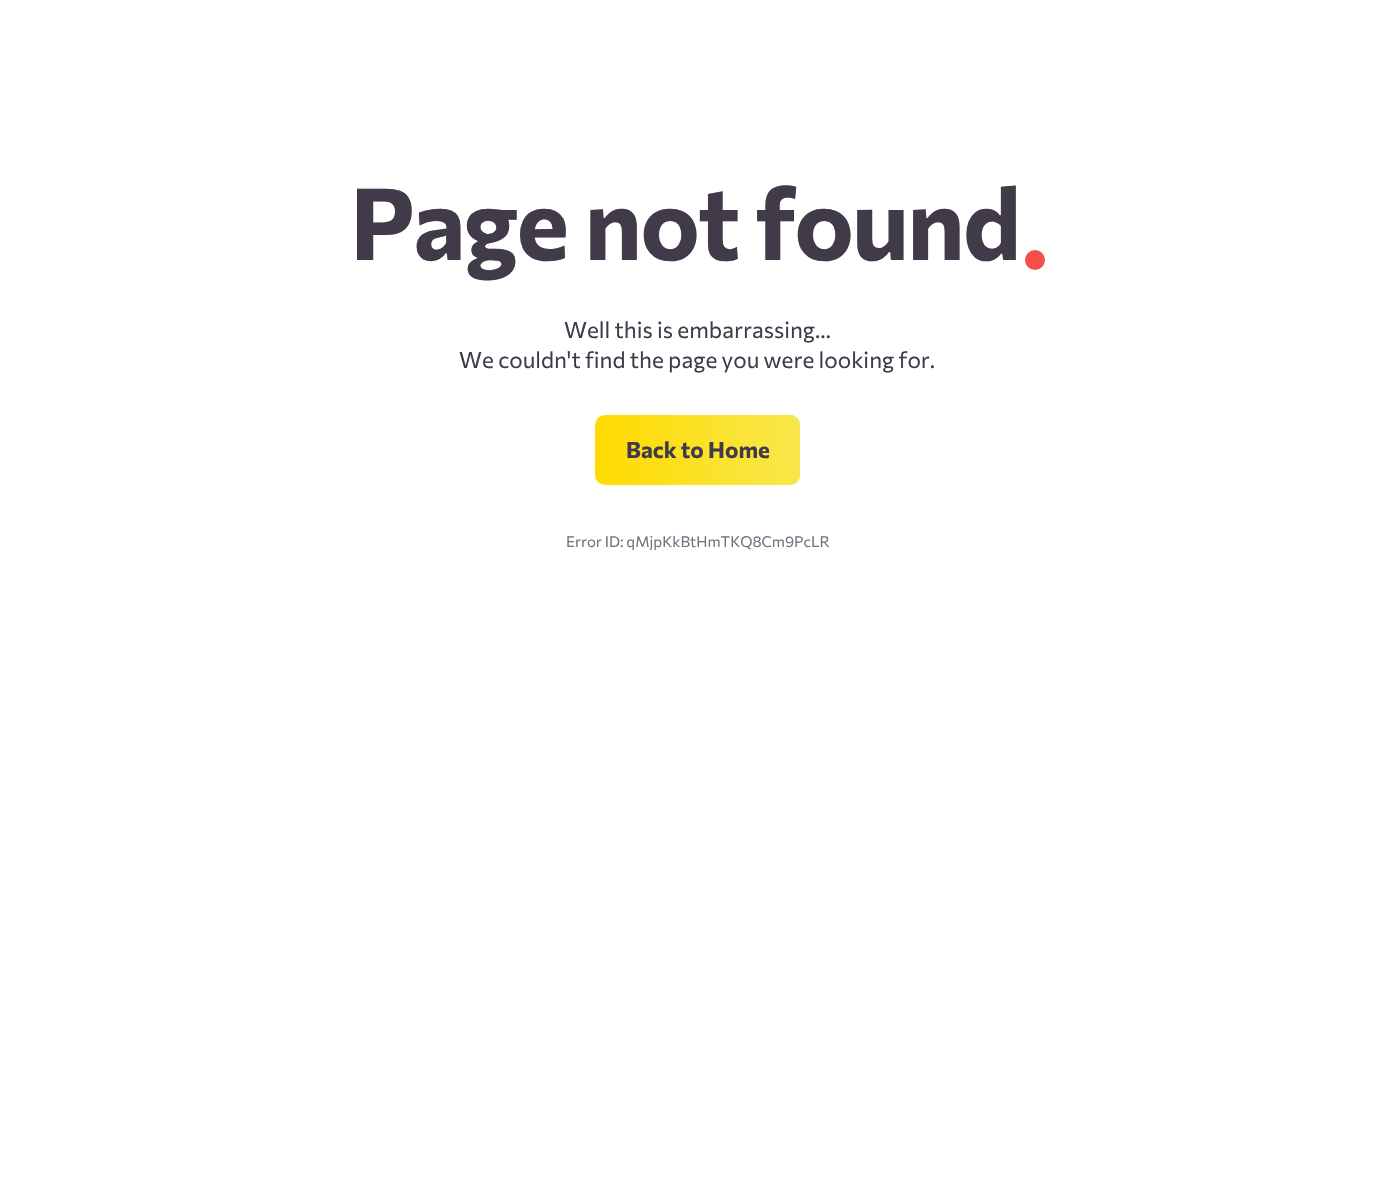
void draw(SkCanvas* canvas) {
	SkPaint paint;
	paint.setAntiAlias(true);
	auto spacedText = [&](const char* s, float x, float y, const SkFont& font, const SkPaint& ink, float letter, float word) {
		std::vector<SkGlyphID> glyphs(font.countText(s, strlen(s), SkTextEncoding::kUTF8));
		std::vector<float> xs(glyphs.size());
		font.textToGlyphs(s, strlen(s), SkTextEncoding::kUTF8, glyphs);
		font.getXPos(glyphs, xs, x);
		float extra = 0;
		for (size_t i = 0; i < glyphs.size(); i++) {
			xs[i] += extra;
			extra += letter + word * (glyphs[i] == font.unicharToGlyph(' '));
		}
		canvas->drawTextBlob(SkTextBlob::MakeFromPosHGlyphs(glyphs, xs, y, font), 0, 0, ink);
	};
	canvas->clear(0xffffffff);
	SkFont f1(fontMgr->matchFamilyStyle("Commissioner", SkFontStyle::Bold()), 100);
	f1.setSubpixel(true);
	paint.setColor(0xff403a49);
	spacedText("Page not found", 350, 260, f1, paint, -2, 0);
	paint.setColor(0xfff34e49);
	canvas->drawCircle(1035, 260, 10, paint);
	SkFont f2(fontMgr->matchFamilyStyle("Commissioner", SkFontStyle::Normal()), 22.5);
	f2.setSubpixel(true);
	paint.setColor(0xff403a49);
	canvas->drawString("Well this is embarrassing…", 564, 338, f2, paint);
	canvas->drawString("We couldn't find the page you were looking for.", 459, 368, f2, paint);
	paint.setColor(0xffffdb00);
	canvas->drawRoundRect(SkRect::MakeXYWH(595, 415, 205, 70), 10, 10, paint);
	{
		const SkColor colors[] = {0x00f8e74a, 0xfff8e74a};
		const float stops[] = {0, 1};
		const SkPoint ends[] = {{595, 450}, {800, 450}};
		paint.setShader(SkGradientShader::MakeLinear(ends, colors, stops, 2, SkTileMode::kClamp));
		paint.setAlpha(255);
	}
	canvas->drawRoundRect(SkRect::MakeXYWH(595, 415, 205, 70), 10, 10, paint);
	SkFont f3(fontMgr->matchFamilyStyle("Commissioner", SkFontStyle::Bold()), 22.5);
	f3.setSubpixel(true);
	paint.setShader(nullptr);
	paint.setColor(0xff403a49);
	canvas->drawString("Back to Home", 626, 458, f3, paint);
	SkFont f4(fontMgr->matchFamilyStyle("Commissioner", SkFontStyle::Normal()), 15);
	f4.setSubpixel(true);
	paint.setColor(0xff766f81);
	canvas->drawString("Error ID: qMjpKkBtHmTKQ8Cm9PcLR", 566, 547, f4, paint);
}
